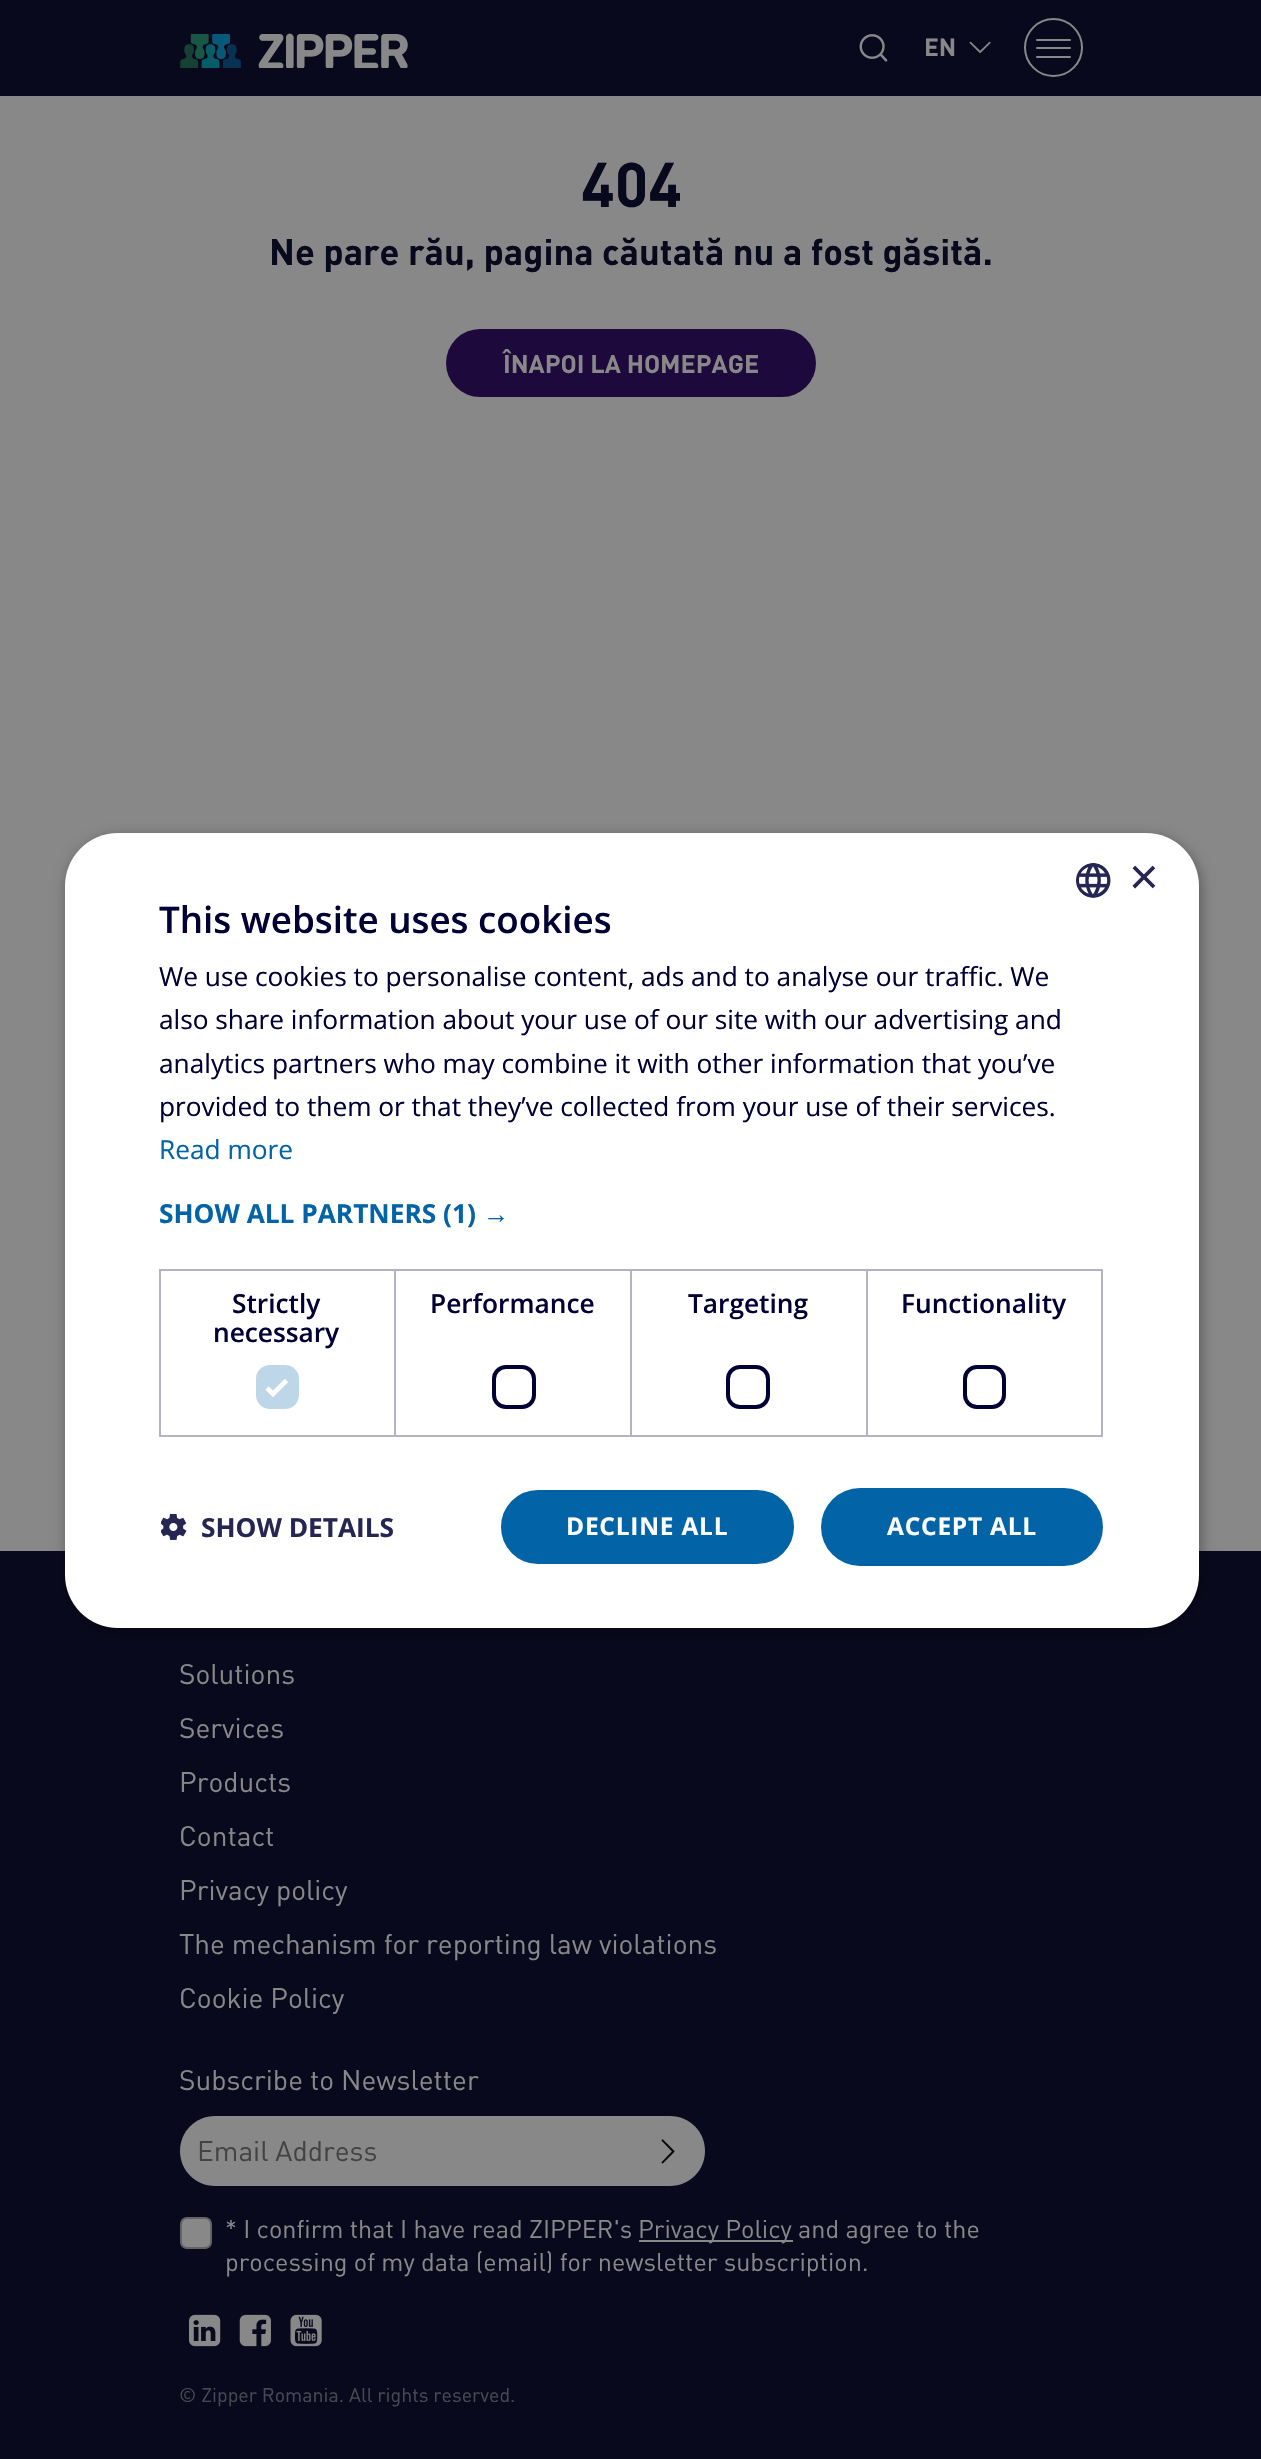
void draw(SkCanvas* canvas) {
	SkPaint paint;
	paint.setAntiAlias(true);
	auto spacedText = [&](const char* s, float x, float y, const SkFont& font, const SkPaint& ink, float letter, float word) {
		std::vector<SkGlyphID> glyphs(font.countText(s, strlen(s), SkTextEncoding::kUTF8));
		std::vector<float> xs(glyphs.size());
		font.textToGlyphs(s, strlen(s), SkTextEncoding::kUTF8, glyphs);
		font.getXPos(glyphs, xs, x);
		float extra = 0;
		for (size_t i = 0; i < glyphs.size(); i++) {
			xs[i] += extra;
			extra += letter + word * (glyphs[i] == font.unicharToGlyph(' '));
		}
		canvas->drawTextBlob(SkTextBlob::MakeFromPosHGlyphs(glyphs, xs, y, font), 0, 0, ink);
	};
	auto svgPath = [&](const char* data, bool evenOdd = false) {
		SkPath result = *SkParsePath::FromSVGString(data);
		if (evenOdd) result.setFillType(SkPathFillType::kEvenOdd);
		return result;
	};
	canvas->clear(0xff888888);
	paint.setColor(0xff09091d);
	canvas->drawRect(SkRect::MakeXYWH(0, 0, 1261, 96), paint);
	canvas->drawImageRect(SkImages::DeferredFromEncodedData(SkData::MakeFromFileName("img1.png")), SkRect::MakeXYWH(180, 33, 228, 35), SkSamplingOptions());
	canvas->drawImageRect(SkImages::DeferredFromEncodedData(SkData::MakeFromFileName("img2.png")), SkRect::MakeXYWH(859, 34, 29, 28), SkSamplingOptions());
	SkFont f1(fontMgr->matchFamilyStyle("DIN", SkFontStyle::Bold()), 24.5);
	f1.setSubpixel(true);
	paint.setColor(0xff888888);
	canvas->drawString("EN", 924, 56, f1, paint);
	canvas->drawImageRect(SkImages::DeferredFromEncodedData(SkData::MakeFromFileName("img3.png")), SkRect::MakeXYWH(969, 41, 22, 12), SkSamplingOptions());
	paint.setStroke(true);
	paint.setStrokeWidth(2);
	canvas->drawCircle(1053.5, 47.5, 28.5, paint);
	paint.setStroke(false);
	canvas->drawRoundRect(SkRect::MakeXYWH(1036, 47, 35, 2), 1, 1, paint);
	canvas->drawRoundRect(SkRect::MakeXYWH(1036, 39, 35, 2), 1, 1, paint);
	canvas->drawRoundRect(SkRect::MakeXYWH(1036, 56, 35, 2), 1, 1, paint);
	SkFont f2(fontMgr->matchFamilyStyle("DIN", SkFontStyle::Bold()), 62);
	f2.setSubpixel(true);
	paint.setColor(0xff09091d);
	canvas->drawString("404", 581, 207, f2, paint);
	SkFont f3(fontMgr->matchFamilyStyle("DIN", SkFontStyle::Bold()), 36.4);
	f3.setSubpixel(true);
	canvas->drawString("Ne pare rău, pagina căutată nu a fost găsită.", 269, 265, f3, paint);
	paint.setColor(0xff1d093c);
	canvas->drawRoundRect(SkRect::MakeXYWH(446, 329, 370, 68), 34, 34, paint);
	SkFont f4(fontMgr->matchFamilyStyle("DIN", SkFontStyle::Bold()), 25.2);
	f4.setSubpixel(true);
	paint.setColor(0xff888888);
	canvas->drawString("ÎNAPOI LA HOMEPAGE", 503, 373, f4, paint);
	paint.setColor(0xff09091d);
	canvas->drawRect(SkRect::MakeXYWH(0, 1551, 1261, 908), paint);
	paint.setColor(0x59000000);
	paint.setMaskFilter(SkMaskFilter::MakeBlur(kNormal_SkBlurStyle, 7));
	canvas->drawRoundRect(SkRect::MakeXYWH(67, 837, 1134, 794), 53, 53, paint);
	paint.setMaskFilter(nullptr);
	paint.setColor(0xffffffff);
	canvas->drawRoundRect(SkRect::MakeXYWH(65, 833, 1134, 795), 53, 53, paint);
	canvas->drawImageRect(SkImages::DeferredFromEncodedData(SkData::MakeFromFileName("img4.png")), SkRect::MakeXYWH(1076, 863, 35, 35), SkSamplingOptions());
	SkFont f5(fontMgr->matchFamilyStyle("Liberation Sans", SkFontStyle::Normal()), 51);
	f5.setSubpixel(true);
	paint.setColor(0xff262653);
	canvas->drawString("×", 1129, 894, f5, paint);
	SkFont f6(fontMgr->matchFamilyStyle("Open Sans", SkFontStyle(600, SkFontStyle::kNormal_Width, SkFontStyle::kUpright_Slant)), 36.75);
	f6.setSubpixel(true);
	paint.setColor(0xff000035);
	canvas->drawString("This website uses cookies", 159, 933, f6, paint);
	SkFont f7(fontMgr->matchFamilyStyle("Open Sans", SkFontStyle::Normal()), 26.25);
	f7.setSubpixel(true);
	canvas->drawString("We use cookies to personalise content, ads and to analyse our traffic. We", 159, 986, f7, paint);
	canvas->drawString("also share information about your use of our site with our advertising and", 159, 1029, f7, paint);
	canvas->drawString("analytics partners who may combine it with other information that you’ve", 159, 1073, f7, paint);
	canvas->drawString("provided to them or that they’ve collected from your use of their services.", 159, 1116, f7, paint);
	paint.setColor(0xff0263a6);
	canvas->drawString("Read more", 159, 1159, f7, paint);
	SkFont f8(fontMgr->matchFamilyStyle("Open Sans", SkFontStyle::Bold()), 26.25);
	f8.setSubpixel(true);
	canvas->drawString("SHOW ALL PARTNERS (1)", 159, 1223, f8, paint);
	SkFont f9(fontMgr->matchFamilyStyle("Liberation Sans", SkFontStyle::Bold()), 26.25);
	f9.setSubpixel(true);
	canvas->drawString("→", 483, 1223, f9, paint);
	paint.setStroke(true);
	paint.setColor(0xffb3b3c3);
	canvas->drawRect(SkRect::MakeXYWH(160, 1270, 235, 166), paint);
	SkFont f10(fontMgr->matchFamilyStyle("Open Sans", SkFontStyle(600, SkFontStyle::kNormal_Width, SkFontStyle::kUpright_Slant)), 26.25);
	f10.setSubpixel(true);
	paint.setStroke(false);
	paint.setColor(0xff000035);
	canvas->drawString("Strictly", 232, 1313, f10, paint);
	canvas->drawString("necessary", 213, 1342, f10, paint);
	paint.setColor(0xffbdd6e8);
	canvas->drawRoundRect(SkRect::MakeXYWH(256, 1365, 43, 44), 14, 14, paint);
	paint.setStroke(true);
	paint.setStrokeWidth(4.6);
	paint.setColor(0xffffffff);
	canvas->drawPath(svgPath("M267 1388L273 1394L286.5 1380.5"), paint);
	paint.setStrokeWidth(2);
	paint.setColor(0xffb3b3c3);
	canvas->drawRect(SkRect::MakeXYWH(395, 1270, 236, 166), paint);
	paint.setStroke(false);
	paint.setColor(0xff000035);
	canvas->drawString("Performance", 430, 1313, f10, paint);
	paint.setStroke(true);
	paint.setStrokeWidth(4);
	canvas->drawRoundRect(SkRect::MakeXYWH(494, 1367, 40, 40), 12, 12, paint);
	paint.setStrokeWidth(2);
	paint.setColor(0xffb3b3c3);
	canvas->drawRect(SkRect::MakeXYWH(631, 1270, 236, 166), paint);
	paint.setStroke(false);
	paint.setColor(0xff000035);
	canvas->drawString("Targeting", 688, 1313, f10, paint);
	paint.setStroke(true);
	paint.setStrokeWidth(4);
	canvas->drawRoundRect(SkRect::MakeXYWH(728, 1367, 40, 40), 12, 12, paint);
	paint.setStrokeWidth(2);
	paint.setColor(0xffb3b3c3);
	canvas->drawRect(SkRect::MakeXYWH(867, 1270, 235, 166), paint);
	paint.setStroke(false);
	paint.setColor(0xff000035);
	canvas->drawString("Functionality", 901, 1313, f10, paint);
	paint.setStroke(true);
	paint.setStrokeWidth(4);
	canvas->drawRoundRect(SkRect::MakeXYWH(965, 1367, 39, 40), 12, 12, paint);
	canvas->drawImageRect(SkImages::DeferredFromEncodedData(SkData::MakeFromFileName("img5.png")), SkRect::MakeXYWH(161, 1514, 26, 26), SkSamplingOptions());
	paint.setStroke(false);
	paint.setColor(0xff262653);
	canvas->drawString("SHOW DETAILS", 201, 1537, f8, paint);
	paint.setColor(0xff0263a6);
	canvas->drawRoundRect(SkRect::MakeXYWH(500, 1489, 295, 76), 38, 38, paint);
	paint.setStroke(true);
	paint.setStrokeWidth(2);
	paint.setColor(0xffffffff);
	canvas->drawRoundRect(SkRect::MakeXYWH(500, 1489, 295, 76), 38, 38, paint);
	SkFont f11(fontMgr->matchFamilyStyle("Open Sans", SkFontStyle::Bold()), 24.5);
	f11.setSubpixel(true);
	paint.setStroke(false);
	spacedText("DECLINE ALL", 566, 1535, f11, paint, 0.75, 0);
	paint.setColor(0xff0263a6);
	canvas->drawRoundRect(SkRect::MakeXYWH(821, 1488, 282, 78), 39, 39, paint);
	paint.setColor(0xffffffff);
	spacedText("ACCEPT ALL", 887, 1535, f11, paint, 0.75, 0);
	SkFont f12(fontMgr->matchFamilyStyle("DIN", SkFontStyle::Normal()), 28);
	f12.setSubpixel(true);
	paint.setColor(0xff888888);
	canvas->drawString("Solutions", 179, 1684, f12, paint);
	canvas->drawString("Services", 179, 1738, f12, paint);
	canvas->drawString("Products", 179, 1792, f12, paint);
	canvas->drawString("Contact", 179, 1846, f12, paint);
	canvas->drawString("Privacy policy", 179, 1900, f12, paint);
	canvas->drawString("The mechanism for reporting law violations", 179, 1954, f12, paint);
	canvas->drawString("Cookie Policy", 179, 2008, f12, paint);
	canvas->drawString("Subscribe to Newsletter", 179, 2090, f12, paint);
	canvas->drawPath(svgPath("M215 2116H630V2186H215C195.5 2186 180 2170.5 180 2151C180 2131.5 195.5 2116 215 2116Z"), paint);
	paint.setColor(0xff434343);
	canvas->drawString("Email Address", 197, 2161, f12, paint);
	paint.setColor(0xff888888);
	canvas->drawPath(svgPath("M630 2116H670C689.5 2116 705 2131.5 705 2151C705 2170.5 689.5 2186 670 2186H630Z"), paint);
	canvas->drawImageRect(SkImages::DeferredFromEncodedData(SkData::MakeFromFileName("img6.png")), SkRect::MakeXYWH(661, 2139, 14, 25), SkSamplingOptions());
	canvas->drawRoundRect(SkRect::MakeXYWH(181, 2218, 30, 30), 6, 6, paint);
	paint.setStroke(true);
	paint.setColor(0xff636363);
	canvas->drawRoundRect(SkRect::MakeXYWH(181, 2218, 30, 30), 6, 6, paint);
	SkFont f13(fontMgr->matchFamilyStyle("DIN", SkFontStyle::Normal()), 25.2);
	f13.setSubpixel(true);
	paint.setStroke(false);
	paint.setColor(0xff888888);
	canvas->drawString("* I confirm that I have read ZIPPER's", 225, 2238, f13, paint);
	canvas->drawRect(SkRect::MakeXYWH(639, 2240, 154, 2), paint);
	canvas->drawString("Privacy Policy and agree to the", 638, 2238, f13, paint);
	canvas->drawString("processing of my data (email) for newsletter subscription.", 225, 2271, f13, paint);
	canvas->drawImageRect(SkImages::DeferredFromEncodedData(SkData::MakeFromFileName("img7.png")), SkRect::MakeXYWH(189, 2314, 32, 33), SkSamplingOptions());
	canvas->drawImageRect(SkImages::DeferredFromEncodedData(SkData::MakeFromFileName("img8.png")), SkRect::MakeXYWH(239, 2314, 32, 33), SkSamplingOptions());
	canvas->drawImageRect(SkImages::DeferredFromEncodedData(SkData::MakeFromFileName("img9.png")), SkRect::MakeXYWH(290, 2314, 32, 33), SkSamplingOptions());
	SkFont f14(fontMgr->matchFamilyStyle("DIN", SkFontStyle::Normal()), 19.6);
	f14.setSubpixel(true);
	paint.setColor(0xff494953);
	canvas->drawString("© Zipper Romania. All rights reserved.", 179, 2402, f14, paint);
}
